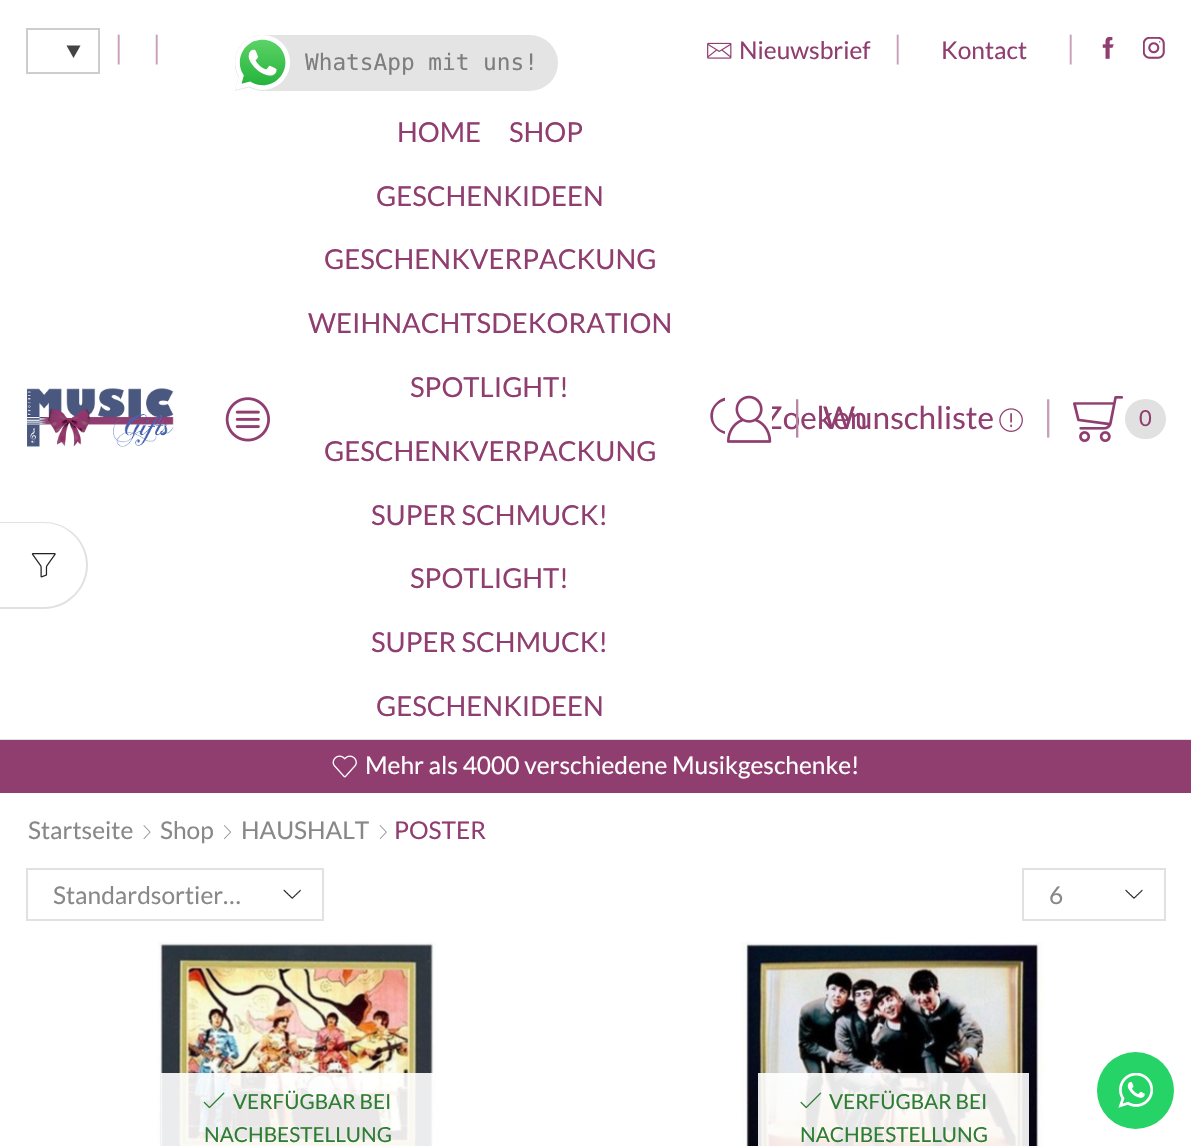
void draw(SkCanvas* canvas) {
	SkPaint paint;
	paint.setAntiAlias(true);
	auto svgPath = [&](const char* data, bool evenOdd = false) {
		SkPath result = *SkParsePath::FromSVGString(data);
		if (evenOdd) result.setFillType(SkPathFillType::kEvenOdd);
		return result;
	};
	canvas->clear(0xffffffff);
	paint.setStroke(true);
	paint.setStrokeWidth(2);
	paint.setColor(0xffcdcdcd);
	canvas->drawRect(SkRect::MakeXYWH(27, 29, 72, 44), paint);
	paint.setStroke(false);
	paint.setColor(0xff444444);
	canvas->drawPath(svgPath("M66.5 45.5H80.5L73.5 58Z"), paint);
	SkFont f1(fontMgr->matchFamilyStyle("Liberation Serif", SkFontStyle::Normal()), 24.5);
	f1.setSubpixel(true);
	paint.setColor(0xffc89eb8);
	canvas->drawString("│", 110, 57, f1, paint);
	canvas->drawString("│", 148, 57, f1, paint);
	paint.setColor(0xffe4e4e4);
	canvas->drawRoundRect(SkRect::MakeXYWH(235, 35, 323, 56), 28, 28, paint);
	canvas->drawImageRect(SkImages::DeferredFromEncodedData(SkData::MakeFromFileName("img1.png")), SkRect::MakeXYWH(235, 35, 55, 56), SkSamplingOptions());
	SkFont f2(fontMgr->matchFamilyStyle("DejaVu Sans Mono", SkFontStyle::Normal()), 22.75);
	f2.setSubpixel(true);
	paint.setColor(0xff7f7d7d);
	canvas->drawString("WhatsApp mit uns!", 305, 70, f2, paint);
	canvas->drawImageRect(SkImages::DeferredFromEncodedData(SkData::MakeFromFileName("img2.png")), SkRect::MakeXYWH(707, 42, 25, 17), SkSamplingOptions());
	SkFont f3(fontMgr->matchFamilyStyle("Lato", SkFontStyle::Normal()), 24.5);
	f3.setSubpixel(true);
	paint.setColor(0xff903d70);
	canvas->drawString("Nieuwsbrief", 739, 59, f3, paint);
	paint.setColor(0xffc89eb8);
	canvas->drawString("│", 889, 57, f1, paint);
	paint.setColor(0xff903d70);
	canvas->drawString("Kontact", 941, 59, f3, paint);
	paint.setColor(0xffc89eb8);
	canvas->drawString("│", 1062, 57, f1, paint);
	canvas->drawImageRect(SkImages::DeferredFromEncodedData(SkData::MakeFromFileName("img3.png")), SkRect::MakeXYWH(1102, 37, 12, 22), SkSamplingOptions());
	canvas->drawImageRect(SkImages::DeferredFromEncodedData(SkData::MakeFromFileName("img4.png")), SkRect::MakeXYWH(1143, 37, 22, 22), SkSamplingOptions());
	paint.setColor(0xffe1e1e1);
	canvas->drawRect(SkRect::MakeXYWH(0, 739, 1191, 1), paint);
	canvas->drawImageRect(SkImages::DeferredFromEncodedData(SkData::MakeFromFileName("img5.png")), SkRect::MakeXYWH(27, 388, 147, 59), SkSamplingOptions());
	canvas->drawImageRect(SkImages::DeferredFromEncodedData(SkData::MakeFromFileName("img6.png")), SkRect::MakeXYWH(225, 397, 45, 45), SkSamplingOptions());
	SkFont f4(fontMgr->matchFamilyStyle("Lato", SkFontStyle::Normal()), 27.5);
	f4.setSubpixel(true);
	paint.setColor(0xff903d70);
	canvas->drawString("HOME", 397, 142, f4, paint);
	canvas->drawString("SHOP", 509, 142, f4, paint);
	canvas->drawString("GESCHENKIDEEN", 376, 206, f4, paint);
	canvas->drawString("GESCHENKVERPACKUNG", 324, 269, f4, paint);
	canvas->drawString("WEIHNACHTSDEKORATION", 308, 333, f4, paint);
	canvas->drawString("SPOTLIGHT!", 410, 397, f4, paint);
	canvas->drawString("GESCHENKVERPACKUNG", 324, 461, f4, paint);
	canvas->drawString("SUPER SCHMUCK!", 371, 525, f4, paint);
	canvas->drawString("SPOTLIGHT!", 410, 588, f4, paint);
	canvas->drawString("SUPER SCHMUCK!", 371, 652, f4, paint);
	canvas->drawString("GESCHENKIDEEN", 376, 716, f4, paint);
	canvas->drawPath(svgPath("M754 439L743 428C758 411 733 386 716 403C699 420 724 445 741 430C743 431 752 442 754 441C755 441 755 440 754 439ZM745 416C745 437 713 437 713 416C713 395 745 395 745 416Z"), paint);
	SkFont f5(fontMgr->matchFamilyStyle("Lato", SkFontStyle::Normal()), 31.5);
	f5.setSubpixel(true);
	canvas->drawString("Zoeken", 763, 429, f5, paint);
	paint.setColor(0xffffffff);
	canvas->drawRect(SkRect::MakeXYWH(725, 397, 47, 45), paint);
	canvas->drawImageRect(SkImages::DeferredFromEncodedData(SkData::MakeFromFileName("img7.png")), SkRect::MakeXYWH(727, 395, 45, 48), SkSamplingOptions());
	SkFont f6(fontMgr->matchFamilyStyle("Liberation Serif", SkFontStyle::Normal()), 31.5);
	f6.setSubpixel(true);
	paint.setColor(0xffb985a5);
	canvas->drawString("│", 786, 428, f6, paint);
	paint.setColor(0xff903d70);
	canvas->drawString("Wunschliste", 823, 429, f5, paint);
	canvas->drawImageRect(SkImages::DeferredFromEncodedData(SkData::MakeFromFileName("img8.png")), SkRect::MakeXYWH(999, 408, 24, 24), SkSamplingOptions());
	paint.setColor(0xffc89eb8);
	canvas->drawString("│", 1037, 428, f6, paint);
	canvas->drawImageRect(SkImages::DeferredFromEncodedData(SkData::MakeFromFileName("img9.png")), SkRect::MakeXYWH(1073, 396, 51, 46), SkSamplingOptions());
	paint.setColor(0xffe1e1e1);
	canvas->drawRoundRect(SkRect::MakeXYWH(1125, 399, 41, 40), 20, 20, paint);
	SkFont f7(fontMgr->matchFamilyStyle("Lato", SkFontStyle::Normal()), 22);
	f7.setSubpixel(true);
	paint.setColor(0xff903d70);
	canvas->drawString("0", 1139, 426, f7, paint);
	canvas->drawRect(SkRect::MakeXYWH(0, 740, 1191, 53), paint);
	canvas->drawImageRect(SkImages::DeferredFromEncodedData(SkData::MakeFromFileName("img10.png")), SkRect::MakeXYWH(332, 755, 25, 23), SkSamplingOptions());
	paint.setColor(0xffffffff);
	canvas->drawString("Mehr als 4000 verschiedene Musikgeschenke!", 365, 774, f3, paint);
	paint.setColor(0xff888888);
	canvas->drawString("Startseite", 28, 839, f3, paint);
	canvas->drawImageRect(SkImages::DeferredFromEncodedData(SkData::MakeFromFileName("img11.png")), SkRect::MakeXYWH(143, 825, 8, 14), SkSamplingOptions());
	canvas->drawString("Shop", 160, 839, f3, paint);
	canvas->drawImageRect(SkImages::DeferredFromEncodedData(SkData::MakeFromFileName("img12.png")), SkRect::MakeXYWH(224, 825, 7, 15), SkSamplingOptions());
	canvas->drawString("HAUSHALT", 241, 839, f3, paint);
	canvas->drawImageRect(SkImages::DeferredFromEncodedData(SkData::MakeFromFileName("img13.png")), SkRect::MakeXYWH(379, 825, 8, 14), SkSamplingOptions());
	paint.setColor(0xff903d70);
	canvas->drawString("POSTER", 394, 839, f3, paint);
	canvas->drawImageRect(SkImages::DeferredFromEncodedData(SkData::MakeFromFileName("img14.png")), SkRect::MakeXYWH(283, 889, 18, 10), SkSamplingOptions());
	paint.setStroke(true);
	paint.setColor(0xffe1e1e1);
	canvas->drawRect(SkRect::MakeXYWH(27, 869, 296, 51), paint);
	paint.setStroke(false);
	paint.setColor(0xff888888);
	canvas->drawString("Standardsortier…", 53, 904, f3, paint);
	canvas->drawImageRect(SkImages::DeferredFromEncodedData(SkData::MakeFromFileName("img15.png")), SkRect::MakeXYWH(1125, 889, 18, 10), SkSamplingOptions());
	paint.setStroke(true);
	paint.setColor(0xffe1e1e1);
	canvas->drawRect(SkRect::MakeXYWH(1023, 869, 142, 51), paint);
	paint.setStroke(false);
	paint.setColor(0xff888888);
	canvas->drawString("6", 1049, 904, f3, paint);
	canvas->drawImageRect(SkImages::DeferredFromEncodedData(SkData::MakeFromFileName("img16.png")), SkRect::MakeXYWH(158, 942, 278, 204), SkSamplingOptions());
	paint.setColor(0xe6ffffff);
	canvas->drawRect(SkRect::MakeXYWH(161, 1073, 273, 73), paint);
	canvas->drawImageRect(SkImages::DeferredFromEncodedData(SkData::MakeFromFileName("img17.png")), SkRect::MakeXYWH(203, 1092, 22, 17), SkSamplingOptions());
	SkFont f8(fontMgr->matchFamilyStyle("Lato", SkFontStyle::Normal()), 20.75);
	f8.setSubpixel(true);
	paint.setColor(0xff2e7d32);
	canvas->drawString("VERFÜGBAR BEI", 233, 1109, f8, paint);
	canvas->drawString("NACHBESTELLUNG", 204, 1142, f8, paint);
	canvas->drawImageRect(SkImages::DeferredFromEncodedData(SkData::MakeFromFileName("img18.png")), SkRect::MakeXYWH(741, 942, 303, 204), SkSamplingOptions());
	paint.setColor(0xe6ffffff);
	canvas->drawRect(SkRect::MakeXYWH(758, 1073, 271, 73), paint);
	canvas->drawImageRect(SkImages::DeferredFromEncodedData(SkData::MakeFromFileName("img19.png")), SkRect::MakeXYWH(800, 1092, 22, 17), SkSamplingOptions());
	paint.setColor(0xff2e7d32);
	canvas->drawString("VERFÜGBAR BEI", 829, 1109, f8, paint);
	canvas->drawString("NACHBESTELLUNG", 800, 1142, f8, paint);
	paint.setColor(0xffe1e1e1);
	canvas->drawPath(svgPath("M0 522H44C68 522 88 541 88 565C88 589 68 609 44 609H0ZM0 523H44C67 523 86 542 86 565C86 588 67 607 44 607H0Z", true), paint);
	canvas->drawImageRect(SkImages::DeferredFromEncodedData(SkData::MakeFromFileName("img20.png")), SkRect::MakeXYWH(31, 553, 25, 25), SkSamplingOptions());
	paint.setColor(0xff25d366);
	canvas->drawCircle(1135.5, 1090.5, 38.5, paint);
	canvas->drawImageRect(SkImages::DeferredFromEncodedData(SkData::MakeFromFileName("img21.png")), SkRect::MakeXYWH(1118, 1073, 35, 35), SkSamplingOptions());
}
